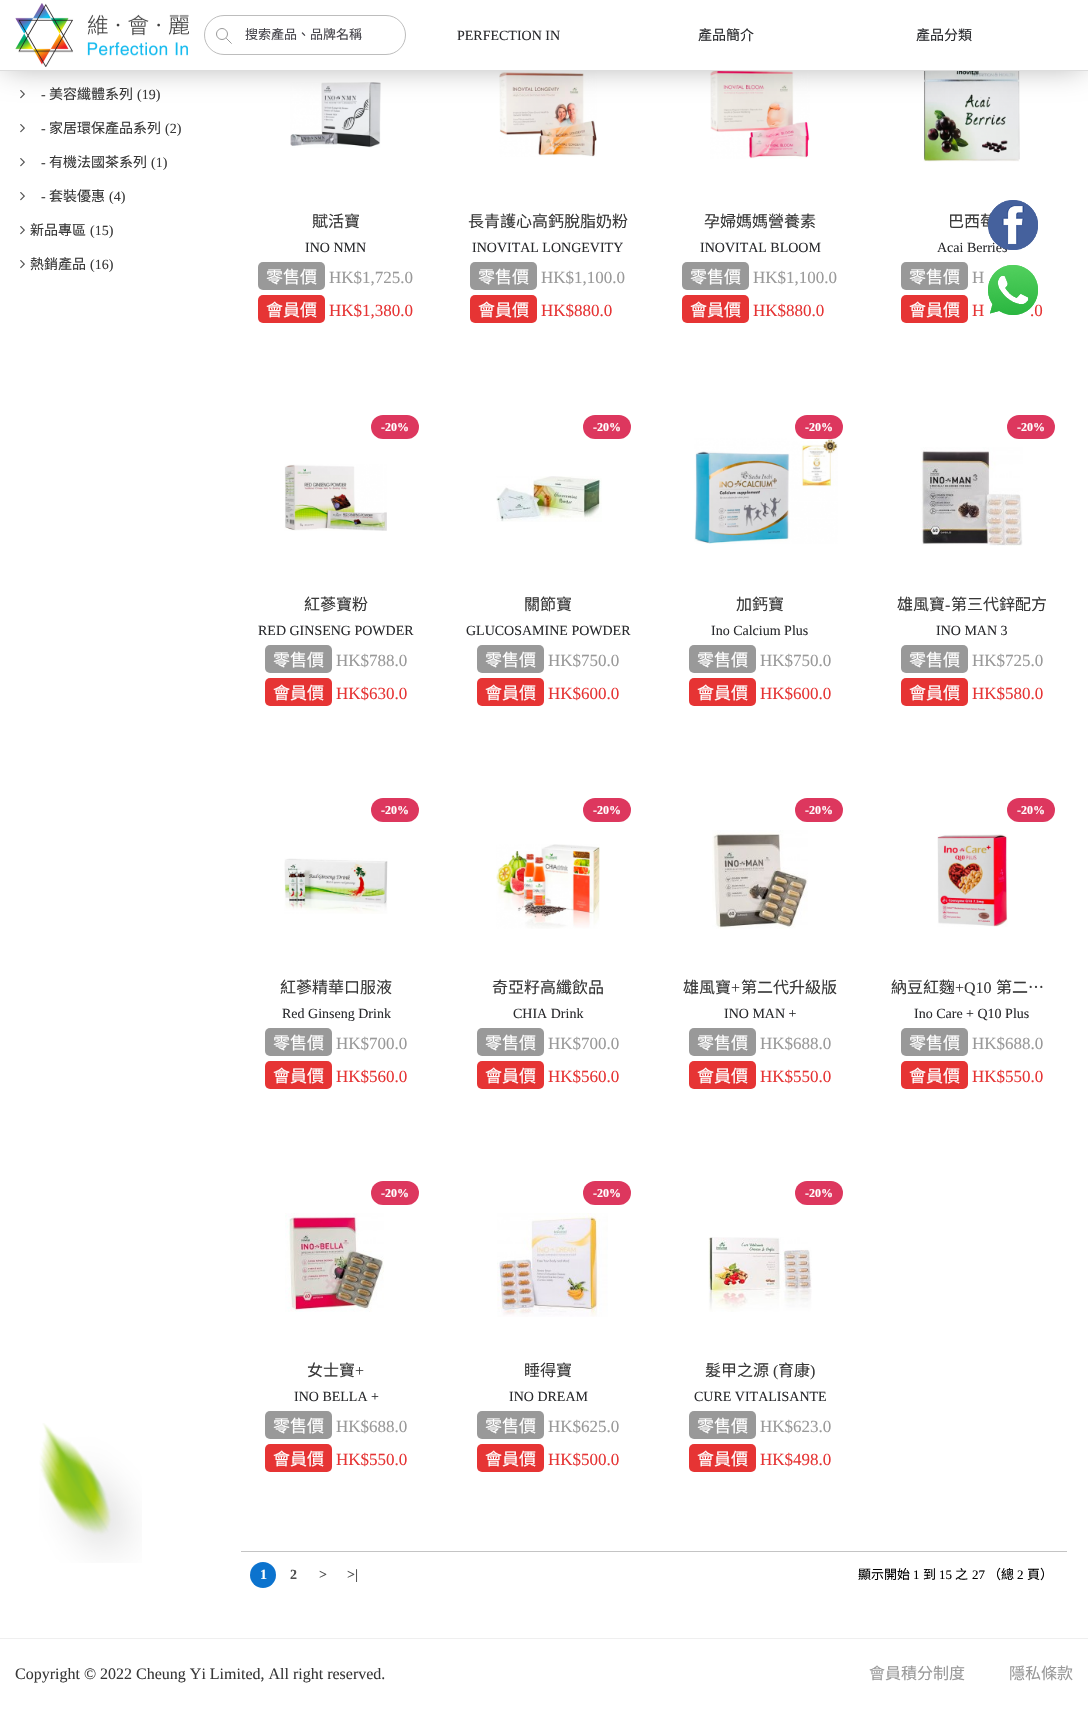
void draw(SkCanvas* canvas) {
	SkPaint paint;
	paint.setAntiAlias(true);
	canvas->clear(0xffffffff);
	canvas->drawImageRect(SkImages::DeferredFromEncodedData(SkData::MakeFromFileName("img3.png")), SkRect::MakeXYWH(20, 90, 5, 9), SkSamplingOptions());
	canvas->drawImageRect(SkImages::DeferredFromEncodedData(SkData::MakeFromFileName("img4.png")), SkRect::MakeXYWH(290, 82, 91, 66), SkSamplingOptions());
	canvas->drawImageRect(SkImages::DeferredFromEncodedData(SkData::MakeFromFileName("img5.png")), SkRect::MakeXYWH(499, 71, 98, 86), SkSamplingOptions());
	canvas->drawImageRect(SkImages::DeferredFromEncodedData(SkData::MakeFromFileName("img6.png")), SkRect::MakeXYWH(710, 71, 100, 88), SkSamplingOptions());
	canvas->drawImageRect(SkImages::DeferredFromEncodedData(SkData::MakeFromFileName("img7.png")), SkRect::MakeXYWH(923, 71, 97, 91), SkSamplingOptions());
	paint.setColor(0x54000000);
	paint.setMaskFilter(SkMaskFilter::MakeBlur(kNormal_SkBlurStyle, 15));
	canvas->drawRect(SkRect::MakeXYWH(5, 6, 1078, 61), paint);
	paint.setMaskFilter(nullptr);
	paint.setColor(0xffffffff);
	canvas->drawRect(SkRect::MakeXYWH(0, 0, 1088, 70), paint);
	paint.setColor(0xffdddddd);
	canvas->drawRect(SkRect::MakeXYWH(0, 70, 1088, 1), paint);
	canvas->drawImageRect(SkImages::DeferredFromEncodedData(SkData::MakeFromFileName("img1.png")), SkRect::MakeXYWH(15, 3, 174, 64), SkSamplingOptions());
	paint.setStroke(true);
	paint.setStrokeWidth(1);
	paint.setColor(0xffbdbdbd);
	canvas->drawRoundRect(SkRect::MakeXYWH(204.5, 15.5, 201, 39), 19.5, 19.5, paint);
	canvas->drawImageRect(SkImages::DeferredFromEncodedData(SkData::MakeFromFileName("img2.png")), SkRect::MakeXYWH(216, 28, 16, 16), SkSamplingOptions());
	SkFont f1(fontMgr->matchFamilyStyle("Noto Sans CJK HK", SkFontStyle::Normal()), 13);
	f1.setSubpixel(true);
	paint.setStroke(false);
	paint.setColor(0xff444349);
	canvas->drawString("搜索產品、品牌名稱", 245, 39, f1, paint);
	SkFont f2(fontMgr->matchFamilyStyle("Liberation Serif", SkFontStyle::Normal()), 14);
	f2.setSubpixel(true);
	paint.setColor(0xff2a2b2e);
	canvas->drawString("PERFECTION IN", 457, 40, f2, paint);
	SkFont f3(fontMgr->matchFamilyStyle("Noto Sans CJK HK", SkFontStyle::Normal()), 14);
	f3.setSubpixel(true);
	canvas->drawString("產品簡介", 698, 40, f3, paint);
	canvas->drawString("產品分類", 916, 40, f3, paint);
	paint.setColor(0xff383838);
	canvas->drawString("-", 41, 99, f2, paint);
	canvas->drawString("美容纖體系列", 49, 99, f3, paint);
	canvas->drawString("(19)", 137, 99, f2, paint);
	canvas->drawImageRect(SkImages::DeferredFromEncodedData(SkData::MakeFromFileName("img3.png")), SkRect::MakeXYWH(20, 124, 5, 9), SkSamplingOptions());
	canvas->drawString("-", 41, 133, f2, paint);
	canvas->drawString("家居環保產品系列", 49, 133, f3, paint);
	canvas->drawString("(2)", 165, 133, f2, paint);
	canvas->drawImageRect(SkImages::DeferredFromEncodedData(SkData::MakeFromFileName("img3.png")), SkRect::MakeXYWH(20, 158, 5, 9), SkSamplingOptions());
	canvas->drawString("-", 41, 167, f2, paint);
	canvas->drawString("有機法國茶系列", 49, 167, f3, paint);
	canvas->drawString("(1)", 151, 167, f2, paint);
	canvas->drawImageRect(SkImages::DeferredFromEncodedData(SkData::MakeFromFileName("img3.png")), SkRect::MakeXYWH(20, 192, 5, 9), SkSamplingOptions());
	canvas->drawString("-", 41, 201, f2, paint);
	canvas->drawString("套裝優惠", 49, 201, f3, paint);
	canvas->drawString("(4)", 109, 201, f2, paint);
	canvas->drawImageRect(SkImages::DeferredFromEncodedData(SkData::MakeFromFileName("img3.png")), SkRect::MakeXYWH(20, 226, 5, 9), SkSamplingOptions());
	canvas->drawString("新品專區", 30, 235, f3, paint);
	canvas->drawString("(15)", 90, 235, f2, paint);
	canvas->drawImageRect(SkImages::DeferredFromEncodedData(SkData::MakeFromFileName("img3.png")), SkRect::MakeXYWH(20, 260, 5, 9), SkSamplingOptions());
	canvas->drawString("熱銷產品", 30, 269, f3, paint);
	canvas->drawString("(16)", 90, 269, f2, paint);
	SkFont f4(fontMgr->matchFamilyStyle("Noto Sans CJK HK", SkFontStyle::Normal()), 16);
	f4.setSubpixel(true);
	canvas->drawString("賦活寶", 312, 227, f4, paint);
	paint.setColor(0xff2a2b2e);
	canvas->drawString("INO NMN", 305, 252, f2, paint);
	paint.setColor(0xff999999);
	canvas->drawRoundRect(SkRect::MakeXYWH(258, 262, 67, 28), 5, 5, paint);
	SkFont f5(fontMgr->matchFamilyStyle("Noto Sans CJK HK", SkFontStyle::Normal()), 17);
	f5.setSubpixel(true);
	paint.setColor(0xffffffff);
	canvas->drawString("零售價", 266, 283, f5, paint);
	SkFont f6(fontMgr->matchFamilyStyle("Liberation Serif", SkFontStyle::Normal()), 17);
	f6.setSubpixel(true);
	paint.setColor(0xff999999);
	canvas->drawString("HK$1,725.0", 329, 283, f6, paint);
	paint.setColor(0xffe63434);
	canvas->drawRoundRect(SkRect::MakeXYWH(258, 295, 67, 28), 5, 5, paint);
	paint.setColor(0xffffffff);
	canvas->drawString("會員價", 266, 316, f5, paint);
	paint.setColor(0xffe63434);
	canvas->drawString("HK$1,380.0", 329, 316, f6, paint);
	paint.setColor(0xff383838);
	canvas->drawString("長青護心高鈣脫脂奶粉", 468, 227, f4, paint);
	paint.setColor(0xff2a2b2e);
	canvas->drawString("INOVITAL LONGEVITY", 472, 252, f2, paint);
	paint.setColor(0xff999999);
	canvas->drawRoundRect(SkRect::MakeXYWH(470, 262, 67, 28), 5, 5, paint);
	paint.setColor(0xffffffff);
	canvas->drawString("零售價", 478, 283, f5, paint);
	paint.setColor(0xff999999);
	canvas->drawString("HK$1,100.0", 541, 283, f6, paint);
	paint.setColor(0xffe63434);
	canvas->drawRoundRect(SkRect::MakeXYWH(470, 295, 67, 28), 5, 5, paint);
	paint.setColor(0xffffffff);
	canvas->drawString("會員價", 478, 316, f5, paint);
	paint.setColor(0xffe63434);
	canvas->drawString("HK$880.0", 541, 316, f6, paint);
	paint.setColor(0xff383838);
	canvas->drawString("孕婦媽媽營養素", 704, 227, f4, paint);
	paint.setColor(0xff2a2b2e);
	canvas->drawString("INOVITAL BLOOM", 700, 252, f2, paint);
	paint.setColor(0xff999999);
	canvas->drawRoundRect(SkRect::MakeXYWH(682, 262, 67, 28), 5, 5, paint);
	paint.setColor(0xffffffff);
	canvas->drawString("零售價", 690, 283, f5, paint);
	paint.setColor(0xff999999);
	canvas->drawString("HK$1,100.0", 753, 283, f6, paint);
	paint.setColor(0xffe63434);
	canvas->drawRoundRect(SkRect::MakeXYWH(682, 295, 67, 28), 5, 5, paint);
	paint.setColor(0xffffffff);
	canvas->drawString("會員價", 690, 316, f5, paint);
	paint.setColor(0xffe63434);
	canvas->drawString("HK$880.0", 753, 316, f6, paint);
	paint.setColor(0xff383838);
	canvas->drawString("巴西莓", 948, 227, f4, paint);
	paint.setColor(0xff2a2b2e);
	canvas->drawString("Acai Berries", 937, 252, f2, paint);
	paint.setColor(0xff999999);
	canvas->drawRoundRect(SkRect::MakeXYWH(901, 262, 67, 28), 5, 5, paint);
	paint.setColor(0xffffffff);
	canvas->drawString("零售價", 909, 283, f5, paint);
	paint.setColor(0xff999999);
	canvas->drawString("H", 972, 283, f6, paint);
	paint.setColor(0xffe63434);
	canvas->drawRoundRect(SkRect::MakeXYWH(901, 295, 67, 28), 5, 5, paint);
	paint.setColor(0xffffffff);
	canvas->drawString("會員價", 909, 316, f5, paint);
	paint.setColor(0xffe63434);
	canvas->drawString("H", 972, 316, f6, paint);
	canvas->drawString(".0", 1030, 316, f6, paint);
	paint.setColor(0xffdd375e);
	canvas->drawRoundRect(SkRect::MakeXYWH(371, 415, 48, 24), 12, 12, paint);
	SkFont f7(fontMgr->matchFamilyStyle("Liberation Serif", SkFontStyle::Bold()), 12);
	f7.setSubpixel(true);
	paint.setColor(0xffffffff);
	canvas->drawString("-20%", 381, 431, f7, paint);
	canvas->drawImageRect(SkImages::DeferredFromEncodedData(SkData::MakeFromFileName("img8.png")), SkRect::MakeXYWH(284, 464, 103, 67), SkSamplingOptions());
	paint.setColor(0xff383838);
	canvas->drawString("紅蔘寶粉", 304, 610, f4, paint);
	paint.setColor(0xff2a2b2e);
	canvas->drawString("RED GINSENG POWDER", 258, 635, f2, paint);
	paint.setColor(0xff999999);
	canvas->drawRoundRect(SkRect::MakeXYWH(265, 645, 67, 28), 5, 5, paint);
	paint.setColor(0xffffffff);
	canvas->drawString("零售價", 273, 666, f5, paint);
	paint.setColor(0xff999999);
	canvas->drawString("HK$788.0", 336, 666, f6, paint);
	paint.setColor(0xffe63434);
	canvas->drawRoundRect(SkRect::MakeXYWH(265, 678, 67, 28), 5, 5, paint);
	paint.setColor(0xffffffff);
	canvas->drawString("會員價", 273, 699, f5, paint);
	paint.setColor(0xffe63434);
	canvas->drawString("HK$630.0", 336, 699, f6, paint);
	paint.setColor(0xffdd375e);
	canvas->drawRoundRect(SkRect::MakeXYWH(583, 415, 48, 24), 12, 12, paint);
	paint.setColor(0xffffffff);
	canvas->drawString("-20%", 593, 431, f7, paint);
	canvas->drawImageRect(SkImages::DeferredFromEncodedData(SkData::MakeFromFileName("img9.png")), SkRect::MakeXYWH(496, 476, 106, 46), SkSamplingOptions());
	paint.setColor(0xff383838);
	canvas->drawString("關節寶", 524, 610, f4, paint);
	paint.setColor(0xff2a2b2e);
	canvas->drawString("GLUCOSAMINE POWDER", 466, 635, f2, paint);
	paint.setColor(0xff999999);
	canvas->drawRoundRect(SkRect::MakeXYWH(477, 645, 67, 28), 5, 5, paint);
	paint.setColor(0xffffffff);
	canvas->drawString("零售價", 485, 666, f5, paint);
	paint.setColor(0xff999999);
	canvas->drawString("HK$750.0", 548, 666, f6, paint);
	paint.setColor(0xffe63434);
	canvas->drawRoundRect(SkRect::MakeXYWH(477, 678, 67, 28), 5, 5, paint);
	paint.setColor(0xffffffff);
	canvas->drawString("會員價", 485, 699, f5, paint);
	paint.setColor(0xffe63434);
	canvas->drawString("HK$600.0", 548, 699, f6, paint);
	canvas->drawImageRect(SkImages::DeferredFromEncodedData(SkData::MakeFromFileName("img10.png")), SkRect::MakeXYWH(694, 438, 144, 106), SkSamplingOptions());
	paint.setColor(0xffdd375e);
	canvas->drawRoundRect(SkRect::MakeXYWH(795, 415, 48, 24), 12, 12, paint);
	paint.setColor(0xffffffff);
	canvas->drawString("-20%", 805, 431, f7, paint);
	paint.setColor(0xff383838);
	canvas->drawString("加鈣寶", 736, 610, f4, paint);
	paint.setColor(0xff2a2b2e);
	canvas->drawString("Ino Calcium Plus", 711, 635, f2, paint);
	paint.setColor(0xff999999);
	canvas->drawRoundRect(SkRect::MakeXYWH(689, 645, 67, 28), 5, 5, paint);
	paint.setColor(0xffffffff);
	canvas->drawString("零售價", 697, 666, f5, paint);
	paint.setColor(0xff999999);
	canvas->drawString("HK$750.0", 760, 666, f6, paint);
	paint.setColor(0xffe63434);
	canvas->drawRoundRect(SkRect::MakeXYWH(689, 678, 67, 28), 5, 5, paint);
	paint.setColor(0xffffffff);
	canvas->drawString("會員價", 697, 699, f5, paint);
	paint.setColor(0xffe63434);
	canvas->drawString("HK$600.0", 760, 699, f6, paint);
	paint.setColor(0xffdd375e);
	canvas->drawRoundRect(SkRect::MakeXYWH(1007, 415, 48, 24), 12, 12, paint);
	paint.setColor(0xffffffff);
	canvas->drawString("-20%", 1017, 431, f7, paint);
	canvas->drawImageRect(SkImages::DeferredFromEncodedData(SkData::MakeFromFileName("img11.png")), SkRect::MakeXYWH(920, 447, 103, 99), SkSamplingOptions());
	paint.setColor(0xff383838);
	canvas->drawString("雄風寶", 897, 610, f4, paint);
	SkFont f8(fontMgr->matchFamilyStyle("Liberation Serif", SkFontStyle::Normal()), 16);
	f8.setSubpixel(true);
	canvas->drawString("-", 945, 610, f8, paint);
	canvas->drawString("第三代鋅配方", 951, 610, f4, paint);
	paint.setColor(0xff2a2b2e);
	canvas->drawString("INO MAN 3", 936, 635, f2, paint);
	paint.setColor(0xff999999);
	canvas->drawRoundRect(SkRect::MakeXYWH(901, 645, 67, 28), 5, 5, paint);
	paint.setColor(0xffffffff);
	canvas->drawString("零售價", 909, 666, f5, paint);
	paint.setColor(0xff999999);
	canvas->drawString("HK$725.0", 972, 666, f6, paint);
	paint.setColor(0xffe63434);
	canvas->drawRoundRect(SkRect::MakeXYWH(901, 678, 67, 28), 5, 5, paint);
	paint.setColor(0xffffffff);
	canvas->drawString("會員價", 909, 699, f5, paint);
	paint.setColor(0xffe63434);
	canvas->drawString("HK$580.0", 972, 699, f6, paint);
	paint.setColor(0xffdd375e);
	canvas->drawRoundRect(SkRect::MakeXYWH(371, 798, 48, 24), 12, 12, paint);
	paint.setColor(0xffffffff);
	canvas->drawString("-20%", 381, 814, f7, paint);
	canvas->drawImageRect(SkImages::DeferredFromEncodedData(SkData::MakeFromFileName("img12.png")), SkRect::MakeXYWH(284, 858, 104, 56), SkSamplingOptions());
	paint.setColor(0xff383838);
	canvas->drawString("紅蔘精華口服液", 280, 993, f4, paint);
	paint.setColor(0xff2a2b2e);
	canvas->drawString("Red Ginseng Drink", 282, 1018, f2, paint);
	paint.setColor(0xff999999);
	canvas->drawRoundRect(SkRect::MakeXYWH(265, 1028, 67, 28), 5, 5, paint);
	paint.setColor(0xffffffff);
	canvas->drawString("零售價", 273, 1049, f5, paint);
	paint.setColor(0xff999999);
	canvas->drawString("HK$700.0", 336, 1049, f6, paint);
	paint.setColor(0xffe63434);
	canvas->drawRoundRect(SkRect::MakeXYWH(265, 1061, 67, 28), 5, 5, paint);
	paint.setColor(0xffffffff);
	canvas->drawString("會員價", 273, 1082, f5, paint);
	paint.setColor(0xffe63434);
	canvas->drawString("HK$560.0", 336, 1082, f6, paint);
	paint.setColor(0xffdd375e);
	canvas->drawRoundRect(SkRect::MakeXYWH(583, 798, 48, 24), 12, 12, paint);
	paint.setColor(0xffffffff);
	canvas->drawString("-20%", 593, 814, f7, paint);
	canvas->drawImageRect(SkImages::DeferredFromEncodedData(SkData::MakeFromFileName("img13.png")), SkRect::MakeXYWH(496, 844, 104, 85), SkSamplingOptions());
	paint.setColor(0xff383838);
	canvas->drawString("奇亞籽高纖飲品", 492, 993, f4, paint);
	paint.setColor(0xff2a2b2e);
	canvas->drawString("CHIA Drink", 513, 1018, f2, paint);
	paint.setColor(0xff999999);
	canvas->drawRoundRect(SkRect::MakeXYWH(477, 1028, 67, 28), 5, 5, paint);
	paint.setColor(0xffffffff);
	canvas->drawString("零售價", 485, 1049, f5, paint);
	paint.setColor(0xff999999);
	canvas->drawString("HK$700.0", 548, 1049, f6, paint);
	paint.setColor(0xffe63434);
	canvas->drawRoundRect(SkRect::MakeXYWH(477, 1061, 67, 28), 5, 5, paint);
	paint.setColor(0xffffffff);
	canvas->drawString("會員價", 485, 1082, f5, paint);
	paint.setColor(0xffe63434);
	canvas->drawString("HK$560.0", 548, 1082, f6, paint);
	paint.setColor(0xffdd375e);
	canvas->drawRoundRect(SkRect::MakeXYWH(795, 798, 48, 24), 12, 12, paint);
	paint.setColor(0xffffffff);
	canvas->drawString("-20%", 805, 814, f7, paint);
	canvas->drawImageRect(SkImages::DeferredFromEncodedData(SkData::MakeFromFileName("img14.png")), SkRect::MakeXYWH(712, 830, 96, 99), SkSamplingOptions());
	paint.setColor(0xff383838);
	canvas->drawString("雄風寶", 683, 993, f4, paint);
	canvas->drawString("+", 731, 993, f8, paint);
	canvas->drawString("第二代升級版", 741, 993, f4, paint);
	paint.setColor(0xff2a2b2e);
	canvas->drawString("INO MAN +", 724, 1018, f2, paint);
	paint.setColor(0xff999999);
	canvas->drawRoundRect(SkRect::MakeXYWH(689, 1028, 67, 28), 5, 5, paint);
	paint.setColor(0xffffffff);
	canvas->drawString("零售價", 697, 1049, f5, paint);
	paint.setColor(0xff999999);
	canvas->drawString("HK$688.0", 760, 1049, f6, paint);
	paint.setColor(0xffe63434);
	canvas->drawRoundRect(SkRect::MakeXYWH(689, 1061, 67, 28), 5, 5, paint);
	paint.setColor(0xffffffff);
	canvas->drawString("會員價", 697, 1082, f5, paint);
	paint.setColor(0xffe63434);
	canvas->drawString("HK$550.0", 760, 1082, f6, paint);
	paint.setColor(0xffdd375e);
	canvas->drawRoundRect(SkRect::MakeXYWH(1007, 798, 48, 24), 12, 12, paint);
	paint.setColor(0xffffffff);
	canvas->drawString("-20%", 1017, 814, f7, paint);
	canvas->drawImageRect(SkImages::DeferredFromEncodedData(SkData::MakeFromFileName("img15.png")), SkRect::MakeXYWH(937, 834, 71, 93), SkSamplingOptions());
	paint.setColor(0xff383838);
	canvas->drawString("納豆紅麴", 891, 993, f4, paint);
	canvas->drawString("+Q10", 955, 993, f8, paint);
	canvas->drawString("第二…", 996, 993, f4, paint);
	paint.setColor(0xff2a2b2e);
	canvas->drawString("Ino Care + Q10 Plus", 914, 1018, f2, paint);
	paint.setColor(0xff999999);
	canvas->drawRoundRect(SkRect::MakeXYWH(901, 1028, 67, 28), 5, 5, paint);
	paint.setColor(0xffffffff);
	canvas->drawString("零售價", 909, 1049, f5, paint);
	paint.setColor(0xff999999);
	canvas->drawString("HK$688.0", 972, 1049, f6, paint);
	paint.setColor(0xffe63434);
	canvas->drawRoundRect(SkRect::MakeXYWH(901, 1061, 67, 28), 5, 5, paint);
	paint.setColor(0xffffffff);
	canvas->drawString("會員價", 909, 1082, f5, paint);
	paint.setColor(0xffe63434);
	canvas->drawString("HK$550.0", 972, 1082, f6, paint);
	paint.setColor(0xffdd375e);
	canvas->drawRoundRect(SkRect::MakeXYWH(371, 1181, 48, 24), 12, 12, paint);
	paint.setColor(0xffffffff);
	canvas->drawString("-20%", 381, 1197, f7, paint);
	canvas->drawImageRect(SkImages::DeferredFromEncodedData(SkData::MakeFromFileName("img16.png")), SkRect::MakeXYWH(285, 1213, 99, 99), SkSamplingOptions());
	paint.setColor(0xff383838);
	canvas->drawString("女士寶", 307, 1376, f4, paint);
	canvas->drawString("+", 355, 1376, f8, paint);
	paint.setColor(0xff2a2b2e);
	canvas->drawString("INO BELLA +", 294, 1401, f2, paint);
	paint.setColor(0xff999999);
	canvas->drawRoundRect(SkRect::MakeXYWH(265, 1411, 67, 28), 5, 5, paint);
	paint.setColor(0xffffffff);
	canvas->drawString("零售價", 273, 1432, f5, paint);
	paint.setColor(0xff999999);
	canvas->drawString("HK$688.0", 336, 1432, f6, paint);
	paint.setColor(0xffe63434);
	canvas->drawRoundRect(SkRect::MakeXYWH(265, 1444, 67, 28), 5, 5, paint);
	paint.setColor(0xffffffff);
	canvas->drawString("會員價", 273, 1465, f5, paint);
	paint.setColor(0xffe63434);
	canvas->drawString("HK$550.0", 336, 1465, f6, paint);
	paint.setColor(0xffdd375e);
	canvas->drawRoundRect(SkRect::MakeXYWH(583, 1181, 48, 24), 12, 12, paint);
	paint.setColor(0xffffffff);
	canvas->drawString("-20%", 593, 1197, f7, paint);
	canvas->drawImageRect(SkImages::DeferredFromEncodedData(SkData::MakeFromFileName("img17.png")), SkRect::MakeXYWH(497, 1213, 111, 104), SkSamplingOptions());
	paint.setColor(0xff383838);
	canvas->drawString("睡得寶", 524, 1376, f4, paint);
	paint.setColor(0xff2a2b2e);
	canvas->drawString("INO DREAM", 509, 1401, f2, paint);
	paint.setColor(0xff999999);
	canvas->drawRoundRect(SkRect::MakeXYWH(477, 1411, 67, 28), 5, 5, paint);
	paint.setColor(0xffffffff);
	canvas->drawString("零售價", 485, 1432, f5, paint);
	paint.setColor(0xff999999);
	canvas->drawString("HK$625.0", 548, 1432, f6, paint);
	paint.setColor(0xffe63434);
	canvas->drawRoundRect(SkRect::MakeXYWH(477, 1444, 67, 28), 5, 5, paint);
	paint.setColor(0xffffffff);
	canvas->drawString("會員價", 485, 1465, f5, paint);
	paint.setColor(0xffe63434);
	canvas->drawString("HK$500.0", 548, 1465, f6, paint);
	paint.setColor(0xffdd375e);
	canvas->drawRoundRect(SkRect::MakeXYWH(795, 1181, 48, 24), 12, 12, paint);
	paint.setColor(0xffffffff);
	canvas->drawString("-20%", 805, 1197, f7, paint);
	canvas->drawImageRect(SkImages::DeferredFromEncodedData(SkData::MakeFromFileName("img18.png")), SkRect::MakeXYWH(708, 1237, 104, 75), SkSamplingOptions());
	paint.setColor(0xff383838);
	canvas->drawString("髮甲之源", 705, 1376, f4, paint);
	canvas->drawString("(", 773, 1376, f8, paint);
	canvas->drawString("育康", 778, 1376, f4, paint);
	canvas->drawString(")", 810, 1376, f8, paint);
	paint.setColor(0xff2a2b2e);
	canvas->drawString("CURE VITALISANTE", 694, 1401, f2, paint);
	paint.setColor(0xff999999);
	canvas->drawRoundRect(SkRect::MakeXYWH(689, 1411, 67, 28), 5, 5, paint);
	paint.setColor(0xffffffff);
	canvas->drawString("零售價", 697, 1432, f5, paint);
	paint.setColor(0xff999999);
	canvas->drawString("HK$623.0", 760, 1432, f6, paint);
	paint.setColor(0xffe63434);
	canvas->drawRoundRect(SkRect::MakeXYWH(689, 1444, 67, 28), 5, 5, paint);
	paint.setColor(0xffffffff);
	canvas->drawString("會員價", 697, 1465, f5, paint);
	paint.setColor(0xffe63434);
	canvas->drawString("HK$498.0", 760, 1465, f6, paint);
	paint.setColor(0xffc4c4c4);
	canvas->drawRect(SkRect::MakeXYWH(241, 1551, 826, 1), paint);
	canvas->drawImageRect(SkImages::DeferredFromEncodedData(SkData::MakeFromFileName("img19.png")), SkRect::MakeXYWH(39, 1423, 103, 140), SkSamplingOptions());
	paint.setColor(0xff0c73ce);
	canvas->drawCircle(263, 1575, 13, paint);
	SkFont f9(fontMgr->matchFamilyStyle("Liberation Serif", SkFontStyle::Bold()), 14);
	f9.setSubpixel(true);
	paint.setColor(0xffffffff);
	canvas->drawString("1", 260, 1579, f9, paint);
	paint.setColor(0xff505050);
	canvas->drawString("2", 290, 1579, f9, paint);
	canvas->drawString(">", 319, 1579, f9, paint);
	canvas->drawString(">|", 347, 1579, f9, paint);
	paint.setColor(0xff000000);
	canvas->drawString("顯示開始", 858, 1579, f1, paint);
	SkFont f10(fontMgr->matchFamilyStyle("Liberation Serif", SkFontStyle::Normal()), 13);
	f10.setSubpixel(true);
	canvas->drawString("1", 913, 1579, f10, paint);
	canvas->drawString("到", 923, 1579, f1, paint);
	canvas->drawString("15", 939, 1579, f10, paint);
	canvas->drawString("之", 955, 1579, f1, paint);
	canvas->drawString("27", 972, 1579, f10, paint);
	canvas->drawString("（總", 988, 1579, f1, paint);
	canvas->drawString("2", 1017, 1579, f10, paint);
	canvas->drawString("頁）", 1027, 1579, f1, paint);
	canvas->drawImageRect(SkImages::DeferredFromEncodedData(SkData::MakeFromFileName("img20.png")), SkRect::MakeXYWH(988, 200, 50, 50), SkSamplingOptions());
	canvas->drawImageRect(SkImages::DeferredFromEncodedData(SkData::MakeFromFileName("img21.png")), SkRect::MakeXYWH(988, 265, 50, 50), SkSamplingOptions());
	canvas->drawImageRect(SkImages::DeferredFromEncodedData(SkData::MakeFromFileName("img22.png")), SkRect::MakeXYWH(988, 200, 50, 50), SkSamplingOptions());
	canvas->drawImageRect(SkImages::DeferredFromEncodedData(SkData::MakeFromFileName("img23.png")), SkRect::MakeXYWH(988, 265, 50, 50), SkSamplingOptions());
	paint.setColor(0xffefefef);
	canvas->drawRect(SkRect::MakeXYWH(0, 1638, 1088, 1), paint);
	paint.setColor(0xff383838);
	canvas->drawString("Copyright © 2022 Cheung Yi Limited, All right reserved.", 15, 1679, f8, paint);
	paint.setColor(0xff999999);
	canvas->drawString("會員積分制度", 869, 1679, f4, paint);
	canvas->drawString("隱私條款", 1009, 1679, f4, paint);
}
